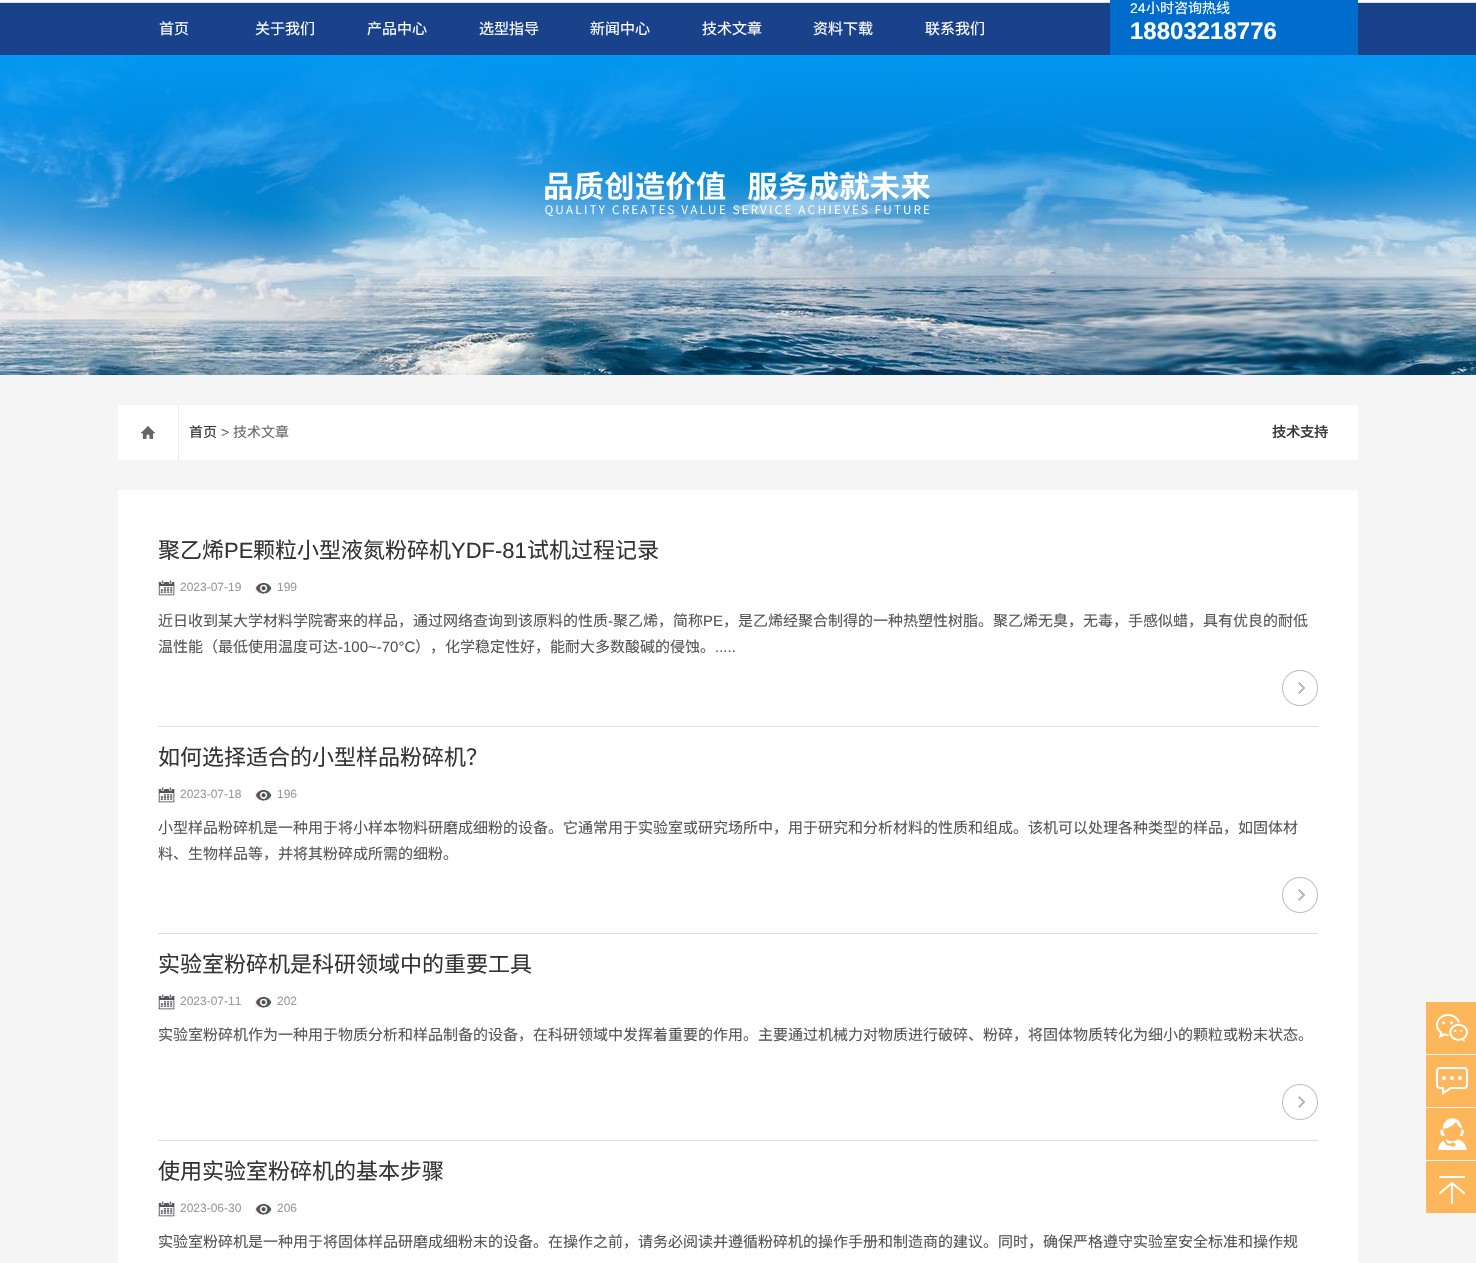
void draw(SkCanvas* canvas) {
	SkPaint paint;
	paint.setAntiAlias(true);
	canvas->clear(0xffffffff);
	paint.setColor(0xff1a428b);
	canvas->drawRect(SkRect::MakeXYWH(0, 3, 1476, 52), paint);
	SkFont f1(fontMgr->matchFamilyStyle("Noto Sans CJK SC", SkFontStyle::Normal()), 15);
	f1.setSubpixel(true);
	paint.setColor(0xffffffff);
	canvas->drawString("首页", 159, 34, f1, paint);
	canvas->drawString("关于我们", 255, 34, f1, paint);
	canvas->drawString("产品中心", 367, 34, f1, paint);
	canvas->drawString("选型指导", 479, 34, f1, paint);
	canvas->drawString("新闻中心", 590, 34, f1, paint);
	canvas->drawString("技术文章", 702, 34, f1, paint);
	canvas->drawString("资料下载", 813, 34, f1, paint);
	canvas->drawString("联系我们", 925, 34, f1, paint);
	paint.setColor(0xffdedede);
	canvas->drawRect(SkRect::MakeXYWH(0, 2, 1476, 1), paint);
	paint.setColor(0xff006ccc);
	canvas->drawRect(SkRect::MakeXYWH(1110, 0, 248, 55), paint);
	SkFont f2(fontMgr->matchFamilyStyle("Liberation Sans", SkFontStyle::Normal()), 14);
	f2.setSubpixel(true);
	paint.setColor(0xffffffff);
	canvas->drawString("24", 1130, 13, f2, paint);
	SkFont f3(fontMgr->matchFamilyStyle("Noto Sans CJK SC", SkFontStyle::Normal()), 14);
	f3.setSubpixel(true);
	canvas->drawString("小时咨询热线", 1146, 13, f3, paint);
	SkFont f4(fontMgr->matchFamilyStyle("Liberation Sans", SkFontStyle::Bold()), 24);
	f4.setSubpixel(true);
	canvas->drawString("18803218776", 1130, 39, f4, paint);
	canvas->drawImageRect(SkImages::DeferredFromEncodedData(SkData::MakeFromFileName("img1.png")), SkRect::MakeXYWH(0, 55, 1476, 320), SkSamplingOptions());
	paint.setColor(0xfff5f5f5);
	canvas->drawRect(SkRect::MakeXYWH(0, 375, 1476, 888), paint);
	paint.setColor(0xffffffff);
	canvas->drawRect(SkRect::MakeXYWH(118, 405, 1240, 55), paint);
	canvas->drawImageRect(SkImages::DeferredFromEncodedData(SkData::MakeFromFileName("img2.png")), SkRect::MakeXYWH(141, 426, 14, 13), SkSamplingOptions());
	paint.setColor(0xffeaeaea);
	canvas->drawRect(SkRect::MakeXYWH(178, 405, 1, 55), paint);
	paint.setColor(0xff333333);
	canvas->drawString("首页", 189, 437, f3, paint);
	paint.setColor(0xff666666);
	canvas->drawString(">", 221, 437, f2, paint);
	canvas->drawString("技术文章", 233, 437, f3, paint);
	SkFont f5(fontMgr->matchFamilyStyle("Noto Sans CJK SC", SkFontStyle::Bold()), 14);
	f5.setSubpixel(true);
	paint.setColor(0xff3a3a3a);
	canvas->drawString("技术支持", 1272, 437, f5, paint);
	paint.setColor(0xffffffff);
	canvas->drawRect(SkRect::MakeXYWH(118, 490, 1240, 773), paint);
	paint.setColor(0xffdedede);
	canvas->drawRect(SkRect::MakeXYWH(158, 726, 1160, 1), paint);
	SkFont f6(fontMgr->matchFamilyStyle("Noto Sans CJK SC", SkFontStyle::Normal()), 22);
	f6.setSubpixel(true);
	paint.setColor(0xff333333);
	canvas->drawString("聚乙烯", 158, 558, f6, paint);
	SkFont f7(fontMgr->matchFamilyStyle("Liberation Sans", SkFontStyle::Normal()), 22);
	f7.setSubpixel(true);
	canvas->drawString("PE", 224, 558, f7, paint);
	canvas->drawString("颗粒小型液氮粉碎机", 253, 558, f6, paint);
	canvas->drawString("YDF-81", 451, 558, f7, paint);
	canvas->drawString("试机过程记录", 527, 558, f6, paint);
	canvas->drawImageRect(SkImages::DeferredFromEncodedData(SkData::MakeFromFileName("img3.png")), SkRect::MakeXYWH(158, 580, 17, 16), SkSamplingOptions());
	SkFont f8(fontMgr->matchFamilyStyle("Liberation Sans", SkFontStyle::Normal()), 12);
	f8.setSubpixel(true);
	paint.setColor(0xff999999);
	canvas->drawString("2023-07-19", 180, 591, f8, paint);
	canvas->drawImageRect(SkImages::DeferredFromEncodedData(SkData::MakeFromFileName("img4.png")), SkRect::MakeXYWH(255, 583, 17, 11), SkSamplingOptions());
	canvas->drawString("199", 277, 591, f8, paint);
	paint.setColor(0xff555555);
	canvas->drawString("近日收到某大学材料学院寄来的样品，通过网络查询到该原料的性质", 158, 626, f1, paint);
	SkFont f9(fontMgr->matchFamilyStyle("Liberation Sans", SkFontStyle::Normal()), 15);
	f9.setSubpixel(true);
	canvas->drawString("-", 608, 626, f9, paint);
	canvas->drawString("聚乙烯，简称", 613, 626, f1, paint);
	canvas->drawString("PE", 703, 626, f9, paint);
	canvas->drawString("，是乙烯经聚合制得的一种热塑性树脂。聚乙烯无臭，无毒，手感似蜡，具有优良的耐低", 723, 626, f1, paint);
	canvas->drawString("温性能（最低使用温度可达", 158, 652, f1, paint);
	canvas->drawString("-100~-70°C", 338, 652, f9, paint);
	canvas->drawString("），化学稳定性好，能耐大多数酸碱的侵蚀。", 415, 652, f1, paint);
	canvas->drawString(".....", 715, 652, f9, paint);
	canvas->drawImageRect(SkImages::DeferredFromEncodedData(SkData::MakeFromFileName("img5.png")), SkRect::MakeXYWH(1282, 670, 36, 36), SkSamplingOptions());
	paint.setColor(0xffdedede);
	canvas->drawRect(SkRect::MakeXYWH(158, 933, 1160, 1), paint);
	paint.setColor(0xff333333);
	canvas->drawString("如何选择适合的小型样品粉碎机？", 158, 765, f6, paint);
	canvas->drawImageRect(SkImages::DeferredFromEncodedData(SkData::MakeFromFileName("img3.png")), SkRect::MakeXYWH(158, 787, 17, 16), SkSamplingOptions());
	paint.setColor(0xff999999);
	canvas->drawString("2023-07-18", 180, 798, f8, paint);
	canvas->drawImageRect(SkImages::DeferredFromEncodedData(SkData::MakeFromFileName("img4.png")), SkRect::MakeXYWH(255, 790, 17, 11), SkSamplingOptions());
	canvas->drawString("196", 277, 798, f8, paint);
	paint.setColor(0xff555555);
	canvas->drawString("小型样品粉碎机是一种用于将小样本物料研磨成细粉的设备。它通常用于实验室或研究场所中，用于研究和分析材料的性质和组成。该机可以处理各种类型的样品，如固体材", 158, 833, f1, paint);
	canvas->drawString("料、生物样品等，并将其粉碎成所需的细粉。", 158, 859, f1, paint);
	canvas->drawImageRect(SkImages::DeferredFromEncodedData(SkData::MakeFromFileName("img5.png")), SkRect::MakeXYWH(1282, 877, 36, 36), SkSamplingOptions());
	paint.setColor(0xffdedede);
	canvas->drawRect(SkRect::MakeXYWH(158, 1140, 1160, 1), paint);
	paint.setColor(0xff333333);
	canvas->drawString("实验室粉碎机是科研领域中的重要工具", 158, 972, f6, paint);
	canvas->drawImageRect(SkImages::DeferredFromEncodedData(SkData::MakeFromFileName("img3.png")), SkRect::MakeXYWH(158, 994, 17, 16), SkSamplingOptions());
	paint.setColor(0xff999999);
	canvas->drawString("2023-07-11", 180, 1005, f8, paint);
	canvas->drawImageRect(SkImages::DeferredFromEncodedData(SkData::MakeFromFileName("img4.png")), SkRect::MakeXYWH(255, 997, 17, 11), SkSamplingOptions());
	canvas->drawString("202", 277, 1005, f8, paint);
	paint.setColor(0xff555555);
	canvas->drawString("实验室粉碎机作为一种用于物质分析和样品制备的设备，在科研领域中发挥着重要的作用。主要通过机械力对物质进行破碎、粉碎，将固体物质转化为细小的颗粒或粉末状态。", 158, 1040, f1, paint);
	canvas->drawImageRect(SkImages::DeferredFromEncodedData(SkData::MakeFromFileName("img5.png")), SkRect::MakeXYWH(1282, 1084, 36, 36), SkSamplingOptions());
	paint.setColor(0xff333333);
	canvas->drawString("使用实验室粉碎机的基本步骤", 158, 1179, f6, paint);
	canvas->drawImageRect(SkImages::DeferredFromEncodedData(SkData::MakeFromFileName("img3.png")), SkRect::MakeXYWH(158, 1201, 17, 16), SkSamplingOptions());
	paint.setColor(0xff999999);
	canvas->drawString("2023-06-30", 180, 1212, f8, paint);
	canvas->drawImageRect(SkImages::DeferredFromEncodedData(SkData::MakeFromFileName("img4.png")), SkRect::MakeXYWH(255, 1204, 17, 11), SkSamplingOptions());
	canvas->drawString("206", 277, 1212, f8, paint);
	paint.setColor(0xff555555);
	canvas->drawString("实验室粉碎机是一种用于将固体样品研磨成细粉末的设备。在操作之前，请务必阅读并遵循粉碎机的操作手册和制造商的建议。同时，确保严格遵守实验室安全标准和操作规", 158, 1247, f1, paint);
	paint.setColor(0xfffeb65b);
	canvas->drawRect(SkRect::MakeXYWH(1426, 1002, 50, 52), paint);
	canvas->drawImageRect(SkImages::DeferredFromEncodedData(SkData::MakeFromFileName("img6.png")), SkRect::MakeXYWH(1436, 1014, 32, 28), SkSamplingOptions());
	canvas->drawRect(SkRect::MakeXYWH(1426, 1055, 50, 52), paint);
	canvas->drawImageRect(SkImages::DeferredFromEncodedData(SkData::MakeFromFileName("img7.png")), SkRect::MakeXYWH(1436, 1067, 39, 28), SkSamplingOptions());
	canvas->drawRect(SkRect::MakeXYWH(1426, 1108, 50, 52), paint);
	canvas->drawImageRect(SkImages::DeferredFromEncodedData(SkData::MakeFromFileName("img8.png")), SkRect::MakeXYWH(1438, 1118, 29, 32), SkSamplingOptions());
	canvas->drawRect(SkRect::MakeXYWH(1426, 1161, 50, 52), paint);
	canvas->drawImageRect(SkImages::DeferredFromEncodedData(SkData::MakeFromFileName("img9.png")), SkRect::MakeXYWH(1439, 1176, 26, 28), SkSamplingOptions());
}
